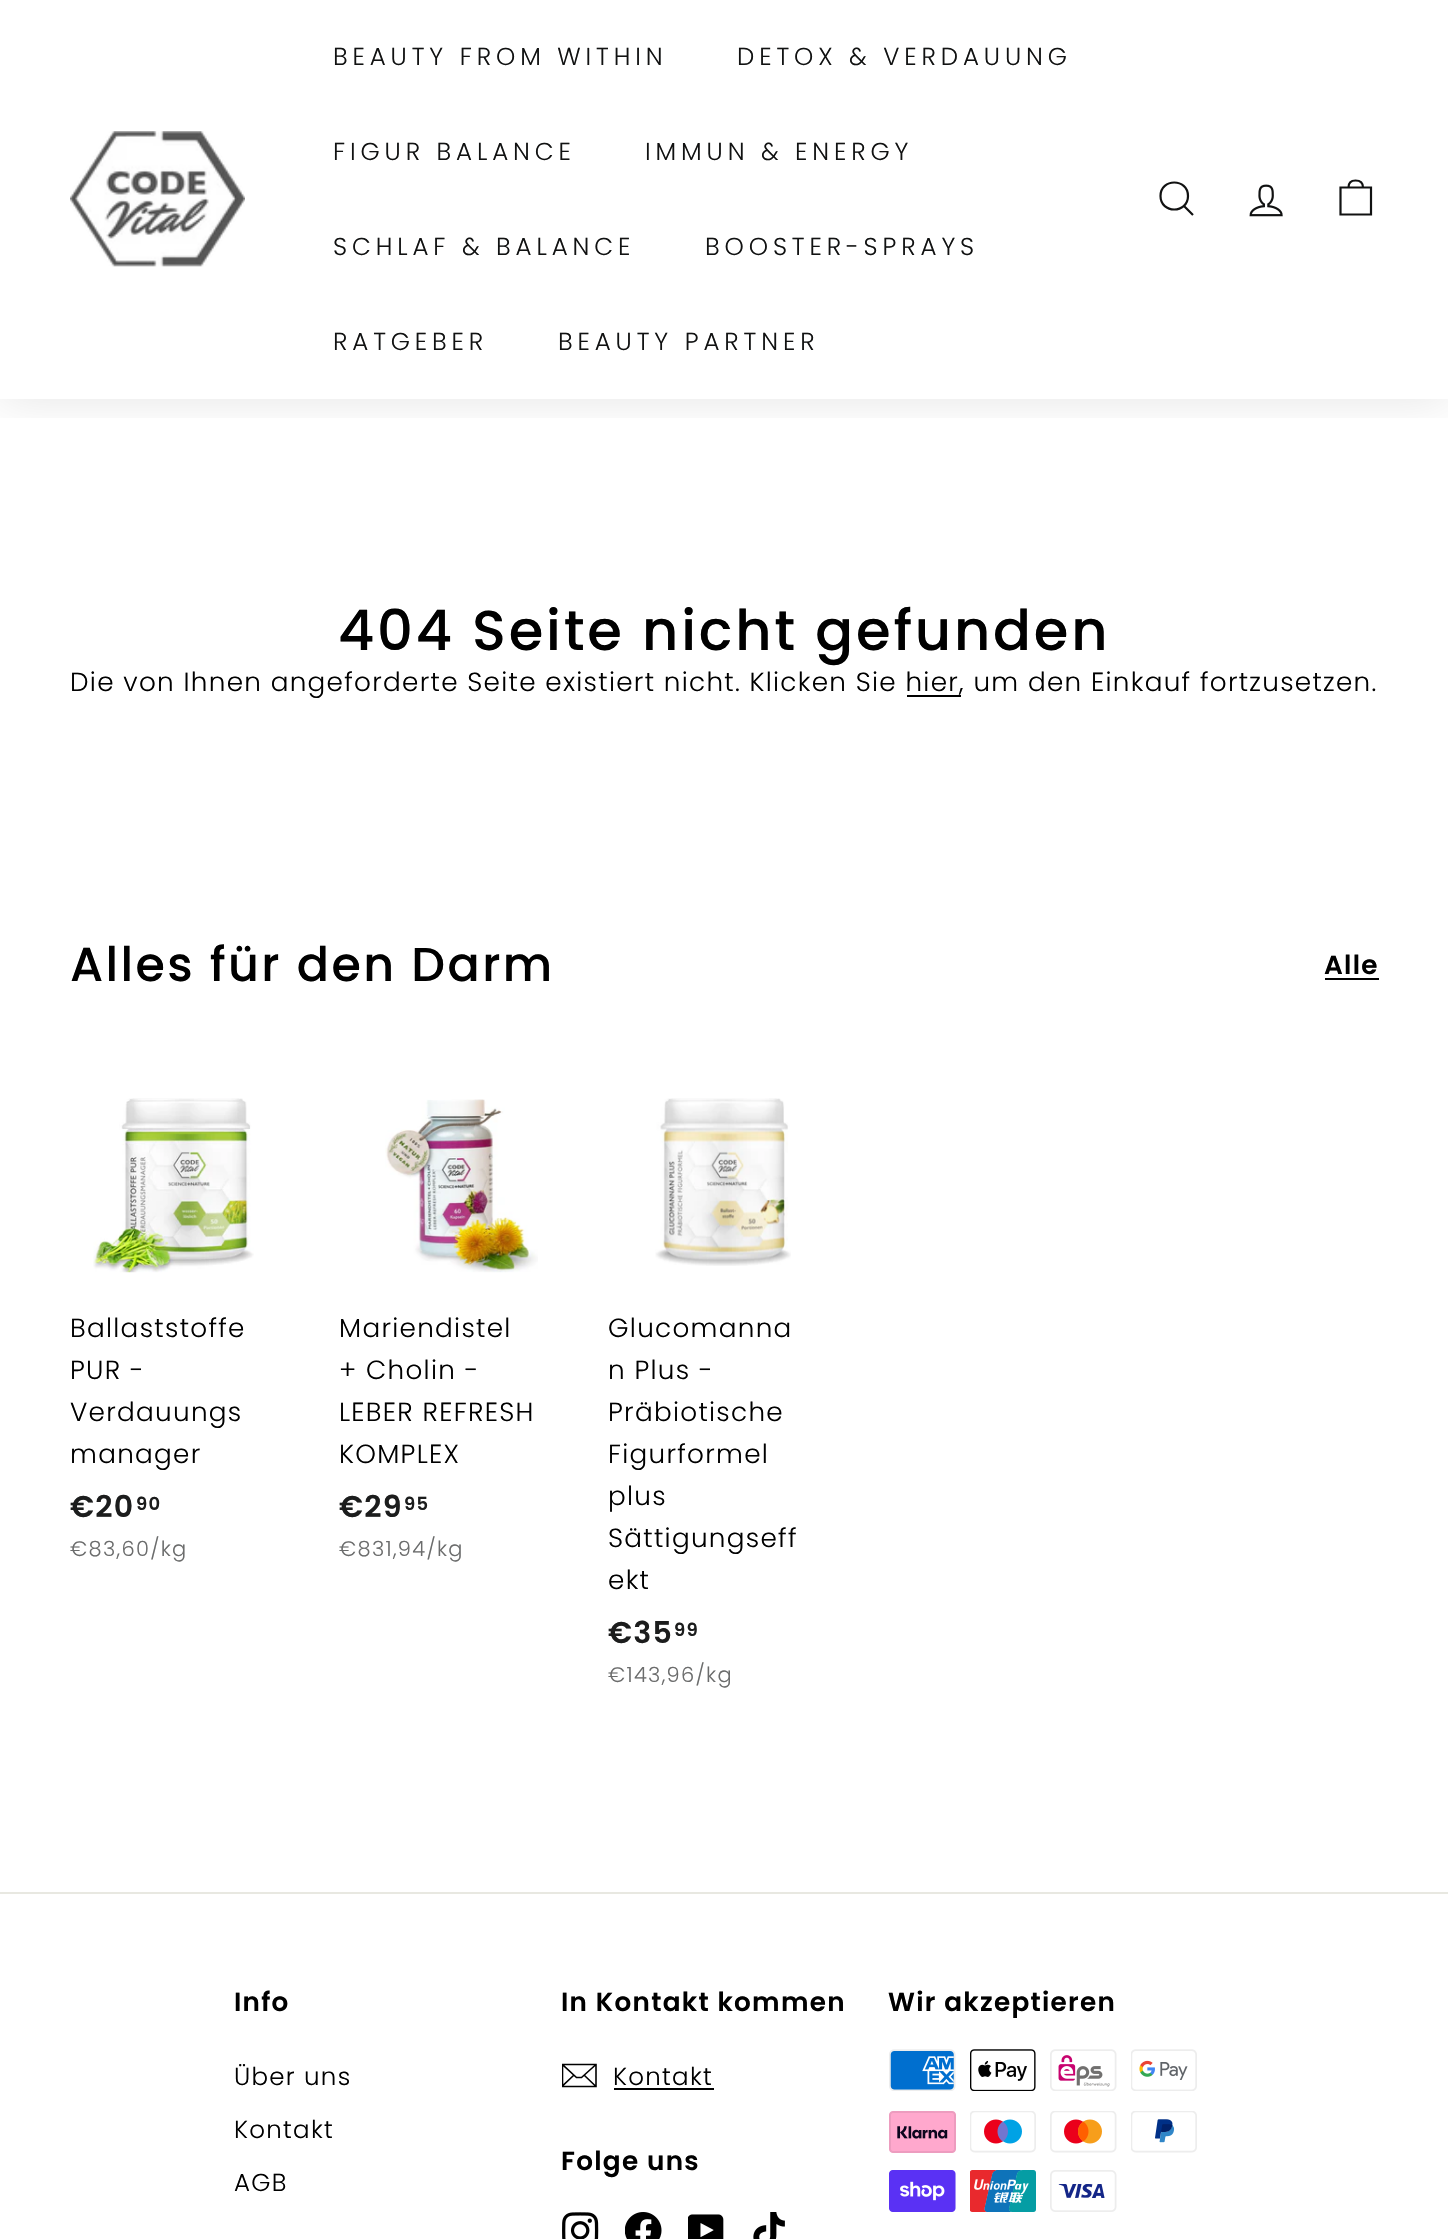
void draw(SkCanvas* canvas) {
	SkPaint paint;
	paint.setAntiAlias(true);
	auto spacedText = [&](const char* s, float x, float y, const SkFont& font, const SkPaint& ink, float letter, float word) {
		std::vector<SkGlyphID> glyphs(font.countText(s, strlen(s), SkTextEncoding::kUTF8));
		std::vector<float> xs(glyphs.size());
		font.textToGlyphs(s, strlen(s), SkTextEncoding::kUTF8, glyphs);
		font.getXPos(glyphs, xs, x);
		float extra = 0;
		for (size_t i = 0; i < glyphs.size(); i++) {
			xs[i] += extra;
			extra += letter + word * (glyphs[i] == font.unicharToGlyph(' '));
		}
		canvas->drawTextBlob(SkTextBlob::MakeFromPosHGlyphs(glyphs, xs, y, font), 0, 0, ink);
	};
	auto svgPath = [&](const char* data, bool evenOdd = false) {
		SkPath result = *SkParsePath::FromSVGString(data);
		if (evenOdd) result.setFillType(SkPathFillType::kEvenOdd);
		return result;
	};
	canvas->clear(0xffffffff);
	canvas->save();
	canvas->clipRect(SkRect::MakeXYWH(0, 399, 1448, 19));
	paint.setColor(0x1a000000);
	paint.setMaskFilter(SkMaskFilter::MakeBlur(kNormal_SkBlurStyle, 22));
	canvas->drawRect(SkRect::MakeXYWH(0, 0, 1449, 399), paint);
	paint.setMaskFilter(nullptr);
	canvas->restore();
	canvas->drawImageRect(SkImages::DeferredFromEncodedData(SkData::MakeFromFileName("img1.png")), SkRect::MakeXYWH(70, 131, 175, 136), SkSamplingOptions());
	SkFont f1(fontMgr->matchFamilyStyle("Poppins", SkFontStyle(300, SkFontStyle::kNormal_Width, SkFontStyle::kUpright_Slant)), 24.5);
	f1.setSubpixel(true);
	paint.setColor(0xff111212);
	spacedText("BEAUTY FROM WITHIN", 333, 65, f1, paint, 4.9, 0);
	spacedText("DETOX & VERDAUUNG", 737, 65, f1, paint, 4.9, 0);
	spacedText("FIGUR BALANCE", 333, 160, f1, paint, 4.9, 0);
	spacedText("IMMUN & ENERGY", 645, 160, f1, paint, 4.9, 0);
	spacedText("SCHLAF & BALANCE", 333, 255, f1, paint, 4.9, 0);
	spacedText("BOOSTER-SPRAYS", 705, 255, f1, paint, 4.9, 0);
	spacedText("RATGEBER", 333, 350, f1, paint, 4.9, 0);
	spacedText("BEAUTY PARTNER", 558, 350, f1, paint, 4.9, 0);
	paint.setStroke(true);
	paint.setStrokeWidth(2.2);
	canvas->drawPath(svgPath("M1188 196C1188 214 1160.5 214 1160.5 196C1160.5 178 1188 178 1188 196ZM1193 215L1184 206"), paint);
	canvas->drawImageRect(SkImages::DeferredFromEncodedData(SkData::MakeFromFileName("img2.png")), SkRect::MakeXYWH(1249, 184, 34, 33), SkSamplingOptions());
	canvas->drawPath(svgPath("M1348.5 187.5C1348.5 182 1351.5 180.5 1355.5 180.5C1359.5 180.5 1363 182 1363 187.5M1340.5 187.5H1371V214.5H1340.5Z"), paint);
	SkFont f2(fontMgr->matchFamilyStyle("Poppins", SkFontStyle(500, SkFontStyle::kNormal_Width, SkFontStyle::kUpright_Slant)), 56);
	f2.setSubpixel(true);
	paint.setStroke(false);
	paint.setColor(0xff000000);
	spacedText("404 Seite nicht gefunden", 338, 650, f2, paint, 2.8, 0);
	SkFont f3(fontMgr->matchFamilyStyle("Poppins", SkFontStyle(300, SkFontStyle::kNormal_Width, SkFontStyle::kUpright_Slant)), 26.25);
	f3.setSubpixel(true);
	spacedText("Die von Ihnen angeforderte Seite existiert nicht. Klicken Sie hier, um den Einkauf fortzusetzen.", 70, 691, f3, paint, 1.3, 0);
	canvas->drawRect(SkRect::MakeXYWH(907, 695, 54, 2), paint);
	SkFont f4(fontMgr->matchFamilyStyle("Poppins", SkFontStyle(500, SkFontStyle::kNormal_Width, SkFontStyle::kUpright_Slant)), 47.6);
	f4.setSubpixel(true);
	spacedText("Alles für den Darm", 70, 981, f4, paint, 2.4, 0);
	SkFont f5(fontMgr->matchFamilyStyle("Poppins", SkFontStyle(600, SkFontStyle::kNormal_Width, SkFontStyle::kUpright_Slant)), 26.25);
	f5.setSubpixel(true);
	spacedText("Alle", 1324, 974, f5, paint, 1.3, 0);
	canvas->drawRect(SkRect::MakeXYWH(1325, 978, 54, 2), paint);
	canvas->drawImageRect(SkImages::DeferredFromEncodedData(SkData::MakeFromFileName("img3.png")), SkRect::MakeXYWH(93, 1098, 161, 175), SkSamplingOptions());
	spacedText("Ballaststoffe", 70, 1337, f3, paint, 1.3, 0);
	spacedText("PUR -", 70, 1379, f3, paint, 1.3, 0);
	spacedText("Verdauungs", 70, 1421, f3, paint, 1.3, 0);
	spacedText("manager", 70, 1463, f3, paint, 1.3, 0);
	SkFont f6(fontMgr->matchFamilyStyle("Poppins", SkFontStyle(600, SkFontStyle::kNormal_Width, SkFontStyle::kUpright_Slant)), 30);
	f6.setSubpixel(true);
	paint.setColor(0xff1c1d1d);
	spacedText("€20", 70, 1517, f6, paint, 1.3, 0);
	SkFont f7(fontMgr->matchFamilyStyle("Poppins", SkFontStyle(600, SkFontStyle::kNormal_Width, SkFontStyle::kUpright_Slant)), 18);
	f7.setSubpixel(true);
	spacedText("90", 136, 1510, f7, paint, 1.3, 0);
	SkFont f8(fontMgr->matchFamilyStyle("Poppins", SkFontStyle(300, SkFontStyle::kNormal_Width, SkFontStyle::kUpright_Slant)), 21);
	f8.setSubpixel(true);
	paint.setColor(0xff6b6c6c);
	spacedText("€83,60/kg", 70, 1556, f8, paint, 1.3, 0);
	canvas->drawImageRect(SkImages::DeferredFromEncodedData(SkData::MakeFromFileName("img4.png")), SkRect::MakeXYWH(385, 1099, 153, 174), SkSamplingOptions());
	paint.setColor(0xff000000);
	spacedText("Mariendistel", 339, 1337, f3, paint, 1.3, 0);
	spacedText("+ Cholin -", 339, 1379, f3, paint, 1.3, 0);
	spacedText("LEBER REFRESH", 339, 1421, f3, paint, 1.3, 0);
	spacedText("KOMPLEX", 339, 1463, f3, paint, 1.3, 0);
	paint.setColor(0xff1c1d1d);
	spacedText("€29", 339, 1517, f6, paint, 1.3, 0);
	spacedText("95", 404, 1510, f7, paint, 1.3, 0);
	paint.setColor(0xff6b6c6c);
	spacedText("€831,94/kg", 339, 1556, f8, paint, 1.3, 0);
	canvas->drawImageRect(SkImages::DeferredFromEncodedData(SkData::MakeFromFileName("img5.png")), SkRect::MakeXYWH(655, 1098, 136, 168), SkSamplingOptions());
	paint.setColor(0xff000000);
	spacedText("Glucomanna", 608, 1337, f3, paint, 1.3, 0);
	spacedText("n Plus -", 608, 1379, f3, paint, 1.3, 0);
	spacedText("Präbiotische", 608, 1421, f3, paint, 1.3, 0);
	spacedText("Figurformel", 608, 1463, f3, paint, 1.3, 0);
	spacedText("plus", 608, 1505, f3, paint, 1.3, 0);
	spacedText("Sättigungseff", 608, 1547, f3, paint, 1.3, 0);
	spacedText("ekt", 608, 1589, f3, paint, 1.3, 0);
	paint.setColor(0xff1c1d1d);
	spacedText("€35", 608, 1643, f6, paint, 1.3, 0);
	spacedText("99", 674, 1636, f7, paint, 1.3, 0);
	paint.setColor(0xff6b6c6c);
	spacedText("€143,96/kg", 608, 1682, f8, paint, 1.3, 0);
	paint.setColor(0xffe8e8e1);
	canvas->drawRect(SkRect::MakeXYWH(0, 1892, 1448, 2), paint);
	paint.setColor(0xff000000);
	spacedText("Info", 234, 2011, f5, paint, 1.3, 0);
	spacedText("Über uns", 234, 2085, f1, paint, 1.3, 0);
	spacedText("Kontakt", 234, 2138, f1, paint, 1.3, 0);
	spacedText("AGB", 234, 2191, f1, paint, 1.3, 0);
	spacedText("In Kontakt kommen", 561, 2011, f5, paint, 1.3, 0);
	canvas->save();
	canvas->clipRect(SkRect::MakeXYWH(562, 2058, 35, 35));
	paint.setStroke(true);
	paint.setStrokeWidth(1.6);
	canvas->drawPath(svgPath("M596 2086.5H562.5V2064.5H596ZM562.5 2064.5L576.5 2077.5H581.5L596 2064.5M573.5 2075.5L562.5 2086M596 2086.5L584.5 2075.5"), paint);
	canvas->restore();
	paint.setStroke(false);
	spacedText("Kontakt", 613, 2085, f1, paint, 1.3, 0);
	canvas->drawRect(SkRect::MakeXYWH(614, 2088, 100, 2), paint);
	spacedText("Folge uns", 561, 2170, f5, paint, 1.3, 0);
	canvas->drawImageRect(SkImages::DeferredFromEncodedData(SkData::MakeFromFileName("img6.png")), SkRect::MakeXYWH(562, 2212, 37, 27), SkSamplingOptions());
	canvas->drawImageRect(SkImages::DeferredFromEncodedData(SkData::MakeFromFileName("img7.png")), SkRect::MakeXYWH(625, 2212, 37, 27), SkSamplingOptions());
	canvas->drawImageRect(SkImages::DeferredFromEncodedData(SkData::MakeFromFileName("img8.png")), SkRect::MakeXYWH(688, 2214, 36, 25), SkSamplingOptions());
	canvas->drawImageRect(SkImages::DeferredFromEncodedData(SkData::MakeFromFileName("img9.png")), SkRect::MakeXYWH(753, 2212, 32, 27), SkSamplingOptions());
	spacedText("Wir akzeptieren", 888, 2011, f5, paint, 1.3, 0);
	canvas->drawImageRect(SkImages::DeferredFromEncodedData(SkData::MakeFromFileName("img10.png")), SkRect::MakeXYWH(889, 2049, 67, 42), SkSamplingOptions());
	canvas->drawImageRect(SkImages::DeferredFromEncodedData(SkData::MakeFromFileName("img11.png")), SkRect::MakeXYWH(970, 2049, 66, 42), SkSamplingOptions());
	canvas->drawImageRect(SkImages::DeferredFromEncodedData(SkData::MakeFromFileName("img12.png")), SkRect::MakeXYWH(1050, 2049, 67, 42), SkSamplingOptions());
	canvas->drawImageRect(SkImages::DeferredFromEncodedData(SkData::MakeFromFileName("img13.png")), SkRect::MakeXYWH(1131, 2049, 66, 42), SkSamplingOptions());
	canvas->drawImageRect(SkImages::DeferredFromEncodedData(SkData::MakeFromFileName("img14.png")), SkRect::MakeXYWH(889, 2111, 67, 42), SkSamplingOptions());
	canvas->drawImageRect(SkImages::DeferredFromEncodedData(SkData::MakeFromFileName("img15.png")), SkRect::MakeXYWH(970, 2111, 66, 42), SkSamplingOptions());
	canvas->drawImageRect(SkImages::DeferredFromEncodedData(SkData::MakeFromFileName("img16.png")), SkRect::MakeXYWH(1050, 2111, 67, 42), SkSamplingOptions());
	canvas->drawImageRect(SkImages::DeferredFromEncodedData(SkData::MakeFromFileName("img17.png")), SkRect::MakeXYWH(1131, 2111, 66, 42), SkSamplingOptions());
	canvas->drawImageRect(SkImages::DeferredFromEncodedData(SkData::MakeFromFileName("img18.png")), SkRect::MakeXYWH(889, 2170, 67, 42), SkSamplingOptions());
	canvas->drawImageRect(SkImages::DeferredFromEncodedData(SkData::MakeFromFileName("img19.png")), SkRect::MakeXYWH(970, 2170, 66, 42), SkSamplingOptions());
	canvas->drawImageRect(SkImages::DeferredFromEncodedData(SkData::MakeFromFileName("img20.png")), SkRect::MakeXYWH(1050, 2170, 67, 42), SkSamplingOptions());
}
